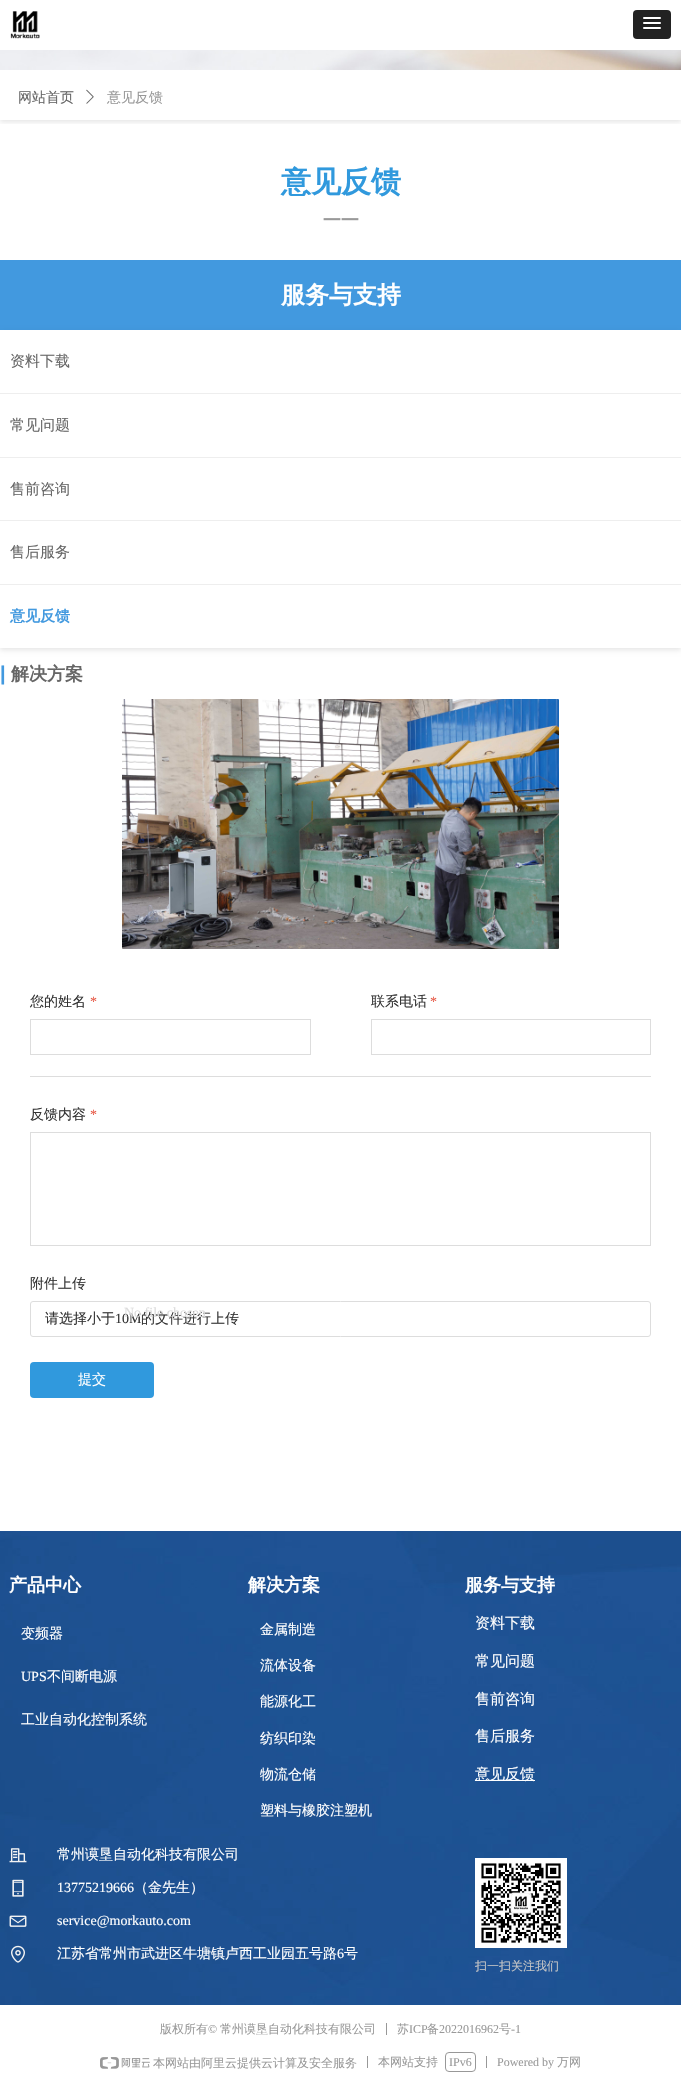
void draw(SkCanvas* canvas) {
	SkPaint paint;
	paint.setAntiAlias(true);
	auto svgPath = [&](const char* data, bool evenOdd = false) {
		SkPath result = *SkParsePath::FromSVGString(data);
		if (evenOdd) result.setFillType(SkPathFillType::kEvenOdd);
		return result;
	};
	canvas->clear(0xffffffff);
	canvas->drawImageRect(SkImages::DeferredFromEncodedData(SkData::MakeFromFileName("img1.png")), SkRect::MakeXYWH(10, 11, 30, 28), SkSamplingOptions());
	paint.setColor(0xff222222);
	canvas->drawRoundRect(SkRect::MakeXYWH(633, 10, 38, 29), 4, 4, paint);
	paint.setColor(0xff1a1a1a);
	canvas->drawPath(svgPath("M643 18.5C642 20.5 646.5 20 646.5 20H657.5C657.5 20 662 20.5 661 18.5C660 19.5 653.5 19 652 19C650.5 19 644 19.5 643 18.5Z"), paint);
	paint.setColor(0xffffffff);
	canvas->drawRoundRect(SkRect::MakeXYWH(643, 17, 18, 2), 1, 1, paint);
	paint.setColor(0xff1a1a1a);
	canvas->drawPath(svgPath("M643 23.5C642 25.5 646.5 25 646.5 25H657.5C657.5 25 662 25.5 661 23.5C660 24.5 653.5 24 652 24C650.5 24 644 24.5 643 23.5Z"), paint);
	paint.setColor(0xffffffff);
	canvas->drawRoundRect(SkRect::MakeXYWH(643, 22, 18, 2), 1, 1, paint);
	paint.setColor(0xff1a1a1a);
	canvas->drawPath(svgPath("M643 28.5C642 30.5 646.5 30 646.5 30H657.5C657.5 30 662 30.5 661 28.5C660 29.5 653.5 29 652 29C650.5 29 644 29.5 643 28.5Z"), paint);
	paint.setColor(0xffffffff);
	canvas->drawRoundRect(SkRect::MakeXYWH(643, 27, 18, 2), 1, 1, paint);
	canvas->save();
	canvas->clipRect(SkRect::MakeXYWH(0, 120, 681, 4));
	paint.setColor(0x1a000000);
	paint.setMaskFilter(SkMaskFilter::MakeBlur(kNormal_SkBlurStyle, 2.5));
	canvas->drawRect(SkRect::MakeXYWH(0, 72, 681, 50), paint);
	paint.setMaskFilter(nullptr);
	canvas->restore();
	canvas->drawImageRect(SkImages::DeferredFromEncodedData(SkData::MakeFromFileName("img2.png")), SkRect::MakeXYWH(0, 50, 681, 20), SkSamplingOptions());
	SkFont f1(fontMgr->matchFamilyStyle("WenQuanYi Zen Hei", SkFontStyle(500, SkFontStyle::kNormal_Width, SkFontStyle::kUpright_Slant)), 14);
	f1.setSubpixel(true);
	paint.setColor(0xff666666);
	canvas->drawString("网站首页", 18, 102, f1, paint);
	canvas->drawImageRect(SkImages::DeferredFromEncodedData(SkData::MakeFromFileName("img3.png")), SkRect::MakeXYWH(86, 89, 8, 15), SkSamplingOptions());
	paint.setColor(0xff999999);
	canvas->drawString("意见反馈", 107, 102, f1, paint);
	SkFont f2(fontMgr->matchFamilyStyle("WenQuanYi Zen Hei", SkFontStyle::Bold()), 30);
	f2.setSubpixel(true);
	paint.setColor(0xff3099dd);
	canvas->drawString("意见反馈", 281, 192, f2, paint);
	SkFont f3(fontMgr->matchFamilyStyle("Noto Sans", SkFontStyle::Bold()), 18);
	f3.setSubpixel(true);
	paint.setColor(0xff999999);
	canvas->drawString("——", 323, 224, f3, paint);
	paint.setColor(0xff4299df);
	canvas->drawRect(SkRect::MakeXYWH(0, 260, 681, 70), paint);
	SkFont f4(fontMgr->matchFamilyStyle("WenQuanYi Zen Hei", SkFontStyle::Bold()), 24);
	f4.setSubpixel(true);
	paint.setColor(0xffffffff);
	canvas->drawString("服务与支持", 281, 303, f4, paint);
	paint.setColor(0x1a000000);
	paint.setMaskFilter(SkMaskFilter::MakeBlur(kNormal_SkBlurStyle, 2.5));
	canvas->drawRect(SkRect::MakeXYWH(0, 332, 681, 318), paint);
	paint.setMaskFilter(nullptr);
	paint.setColor(0xffffffff);
	canvas->drawRect(SkRect::MakeXYWH(0, 330, 681, 63), paint);
	SkFont f5(fontMgr->matchFamilyStyle("WenQuanYi Zen Hei", SkFontStyle(500, SkFontStyle::kNormal_Width, SkFontStyle::kUpright_Slant)), 15);
	f5.setSubpixel(true);
	paint.setColor(0xff666666);
	canvas->drawString("资料下载", 10, 366, f5, paint);
	paint.setColor(0xffffffff);
	canvas->drawRect(SkRect::MakeXYWH(0, 394, 681, 63), paint);
	paint.setColor(0xffeeeeee);
	canvas->drawRect(SkRect::MakeXYWH(0, 393, 681, 1), paint);
	paint.setColor(0xff666666);
	canvas->drawString("常见问题", 10, 430, f5, paint);
	paint.setColor(0xffffffff);
	canvas->drawRect(SkRect::MakeXYWH(0, 458, 681, 62), paint);
	paint.setColor(0xffeeeeee);
	canvas->drawRect(SkRect::MakeXYWH(0, 457, 681, 1), paint);
	paint.setColor(0xff666666);
	canvas->drawString("售前咨询", 10, 494, f5, paint);
	paint.setColor(0xffffffff);
	canvas->drawRect(SkRect::MakeXYWH(0, 521, 681, 63), paint);
	paint.setColor(0xffeeeeee);
	canvas->drawRect(SkRect::MakeXYWH(0, 520, 681, 1), paint);
	paint.setColor(0xff666666);
	canvas->drawString("售后服务", 10, 557, f5, paint);
	paint.setColor(0xffffffff);
	canvas->drawRect(SkRect::MakeXYWH(0, 585, 681, 63), paint);
	paint.setColor(0xffeeeeee);
	canvas->drawRect(SkRect::MakeXYWH(0, 584, 681, 1), paint);
	SkFont f6(fontMgr->matchFamilyStyle("WenQuanYi Zen Hei", SkFontStyle::Bold()), 15);
	f6.setSubpixel(true);
	paint.setColor(0xff4299df);
	canvas->drawString("意见反馈", 10, 621, f6, paint);
	SkFont f7(fontMgr->matchFamilyStyle("Liberation Sans", SkFontStyle::Bold()), 20);
	f7.setSubpixel(true);
	canvas->drawString("|", 0, 680, f7, paint);
	SkFont f8(fontMgr->matchFamilyStyle("WenQuanYi Zen Hei", SkFontStyle::Bold()), 18);
	f8.setSubpixel(true);
	paint.setColor(0xff666666);
	canvas->drawString("解决方案", 11, 680, f8, paint);
	canvas->drawImageRect(SkImages::DeferredFromEncodedData(SkData::MakeFromFileName("img4.png")), SkRect::MakeXYWH(122, 699, 437, 250), SkSamplingOptions());
	paint.setColor(0xff333333);
	canvas->drawString("您的姓名", 30, 1006, f1, paint);
	SkFont f9(fontMgr->matchFamilyStyle("Liberation Serif", SkFontStyle::Normal()), 14);
	f9.setSubpixel(true);
	paint.setColor(0xffe75845);
	canvas->drawString("*", 90, 1006, f9, paint);
	paint.setStroke(true);
	paint.setStrokeWidth(1);
	paint.setColor(0xffdddddd);
	canvas->drawRect(SkRect::MakeXYWH(30.5, 1019.5, 280, 35), paint);
	canvas->save();
	canvas->clipRect(SkRect::MakeXYWH(371, 985, 280, 34));
	paint.setStroke(false);
	paint.setColor(0xff333333);
	canvas->drawString("联系电话", 371, 1006, f1, paint);
	canvas->restore();
	paint.setColor(0xffe75845);
	canvas->drawString("*", 430, 1006, f9, paint);
	paint.setStroke(true);
	paint.setColor(0xffdddddd);
	canvas->drawRect(SkRect::MakeXYWH(371.5, 1019.5, 279, 35), paint);
	paint.setStroke(false);
	canvas->drawRect(SkRect::MakeXYWH(30, 1076, 621, 1), paint);
	paint.setColor(0xff333333);
	canvas->drawString("反馈内容", 30, 1119, f1, paint);
	paint.setColor(0xffe75845);
	canvas->drawString("*", 90, 1119, f9, paint);
	paint.setStroke(true);
	paint.setColor(0xffdddddd);
	canvas->drawRect(SkRect::MakeXYWH(30.5, 1132.5, 620, 113), paint);
	paint.setStroke(false);
	paint.setColor(0xff333333);
	canvas->drawString("附件上传", 30, 1288, f1, paint);
	paint.setStroke(true);
	paint.setColor(0xffdddddd);
	canvas->drawRoundRect(SkRect::MakeXYWH(30.5, 1301.5, 620, 35), 2.5, 2.5, paint);
	paint.setStroke(false);
	paint.setColor(0xff333333);
	canvas->drawString("10M", 115, 1323, f9, paint);
	canvas->drawString("的文件进行上传", 141, 1323, f1, paint);
	paint.setColor(0xffdcdcdc);
	canvas->drawString("No file chosen", 124, 1317, f9, paint);
	paint.setColor(0xff333333);
	canvas->drawString("请选择小于", 45, 1323, f1, paint);
	paint.setColor(0xff3099dd);
	canvas->drawRoundRect(SkRect::MakeXYWH(30, 1362, 124, 36), 4, 4, paint);
	paint.setColor(0xffffffff);
	canvas->drawString("提交", 78, 1384, f1, paint);
	canvas->drawImageRect(SkImages::DeferredFromEncodedData(SkData::MakeFromFileName("img5.png")), SkRect::MakeXYWH(0, 1531, 681, 474), SkSamplingOptions());
	canvas->drawString("产品中心", 9, 1591, f8, paint);
	canvas->drawString("变频器", 21, 1638, f1, paint);
	canvas->drawString("UPS", 21, 1681, f9, paint);
	canvas->drawString("不间断电源", 47, 1681, f1, paint);
	canvas->drawString("工业自动化控制系统", 21, 1724, f1, paint);
	canvas->drawString("解决方案", 248, 1591, f8, paint);
	canvas->drawString("金属制造", 260, 1634, f1, paint);
	canvas->drawString("流体设备", 260, 1670, f1, paint);
	canvas->drawString("能源化工", 260, 1706, f1, paint);
	canvas->drawString("纺织印染", 260, 1743, f1, paint);
	canvas->drawString("物流仓储", 260, 1779, f1, paint);
	canvas->drawString("塑料与橡胶注塑机", 260, 1815, f1, paint);
	canvas->drawString("服务与支持", 465, 1591, f8, paint);
	canvas->drawString("资料下载", 475, 1628, f5, paint);
	canvas->drawString("常见问题", 475, 1666, f5, paint);
	canvas->drawString("售前咨询", 475, 1704, f5, paint);
	canvas->drawString("售后服务", 475, 1741, f5, paint);
	canvas->drawRect(SkRect::MakeXYWH(475, 1780, 60, 1), paint);
	canvas->drawString("意见反馈", 475, 1779, f5, paint);
	canvas->drawImageRect(SkImages::DeferredFromEncodedData(SkData::MakeFromFileName("img6.png")), SkRect::MakeXYWH(9, 1848, 18, 15), SkSamplingOptions());
	canvas->drawString("常州谟垦自动化科技有限公司", 57, 1859, f1, paint);
	canvas->drawImageRect(SkImages::DeferredFromEncodedData(SkData::MakeFromFileName("img7.png")), SkRect::MakeXYWH(12, 1879, 12, 18), SkSamplingOptions());
	canvas->drawString("13775219666", 57, 1892, f9, paint);
	canvas->drawString("（金先生）", 134, 1892, f1, paint);
	canvas->drawImageRect(SkImages::DeferredFromEncodedData(SkData::MakeFromFileName("img8.png")), SkRect::MakeXYWH(9, 1915, 18, 12), SkSamplingOptions());
	canvas->drawString("service@morkauto.com", 57, 1925, f9, paint);
	canvas->drawImageRect(SkImages::DeferredFromEncodedData(SkData::MakeFromFileName("img9.png")), SkRect::MakeXYWH(11, 1945, 14, 18), SkSamplingOptions());
	canvas->drawString("江苏省常州市武进区牛塘镇卢西工业园五号路", 57, 1958, f1, paint);
	canvas->drawString("6", 337, 1958, f9, paint);
	canvas->drawString("号", 344, 1958, f1, paint);
	canvas->drawImageRect(SkImages::DeferredFromEncodedData(SkData::MakeFromFileName("img10.png")), SkRect::MakeXYWH(475, 1858, 92, 90), SkSamplingOptions());
	SkFont f10(fontMgr->matchFamilyStyle("WenQuanYi Zen Hei", SkFontStyle(500, SkFontStyle::kNormal_Width, SkFontStyle::kUpright_Slant)), 12);
	f10.setSubpixel(true);
	paint.setColor(0xffc6c6c6);
	canvas->drawString("扫一扫关注我们", 475, 1970, f10, paint);
	paint.setColor(0xff999999);
	canvas->drawString("版权所有", 160, 2033, f10, paint);
	SkFont f11(fontMgr->matchFamilyStyle("Liberation Serif", SkFontStyle::Normal()), 12);
	f11.setSubpixel(true);
	canvas->drawString("©", 208, 2033, f11, paint);
	canvas->drawString("常州谟垦自动化科技有限公司", 220, 2033, f10, paint);
	paint.setColor(0xff989898);
	canvas->drawRect(SkRect::MakeXYWH(386, 2023, 1, 12), paint);
	paint.setColor(0xff999999);
	canvas->drawString("苏", 397, 2033, f10, paint);
	canvas->drawString("ICP", 409, 2033, f11, paint);
	canvas->drawString("备", 427, 2033, f10, paint);
	canvas->drawString("2022016962", 439, 2033, f11, paint);
	canvas->drawString("号", 499, 2033, f10, paint);
	canvas->drawString("-1", 511, 2033, f11, paint);
	canvas->drawImageRect(SkImages::DeferredFromEncodedData(SkData::MakeFromFileName("img11.png")), SkRect::MakeXYWH(100, 2057, 50, 12), SkSamplingOptions());
	canvas->drawString("本网站由阿里云提供云计算及安全服务", 153, 2067, f10, paint);
	paint.setColor(0xff989898);
	canvas->drawRect(SkRect::MakeXYWH(367, 2056, 1, 12), paint);
	paint.setColor(0xff999999);
	canvas->drawString("本网站支持", 378, 2066, f10, paint);
	paint.setStroke(true);
	paint.setColor(0xff989898);
	canvas->drawRoundRect(SkRect::MakeXYWH(445.5, 2052.5, 30, 19), 3.5, 3.5, paint);
	paint.setStroke(false);
	paint.setColor(0xff999999);
	canvas->drawString("IPv6", 449, 2066, f11, paint);
	paint.setColor(0xff989898);
	canvas->drawRect(SkRect::MakeXYWH(486, 2056, 1, 12), paint);
	paint.setColor(0xff999999);
	canvas->drawString("Powered by", 497, 2066, f11, paint);
	canvas->drawString("万网", 557, 2066, f10, paint);
}
